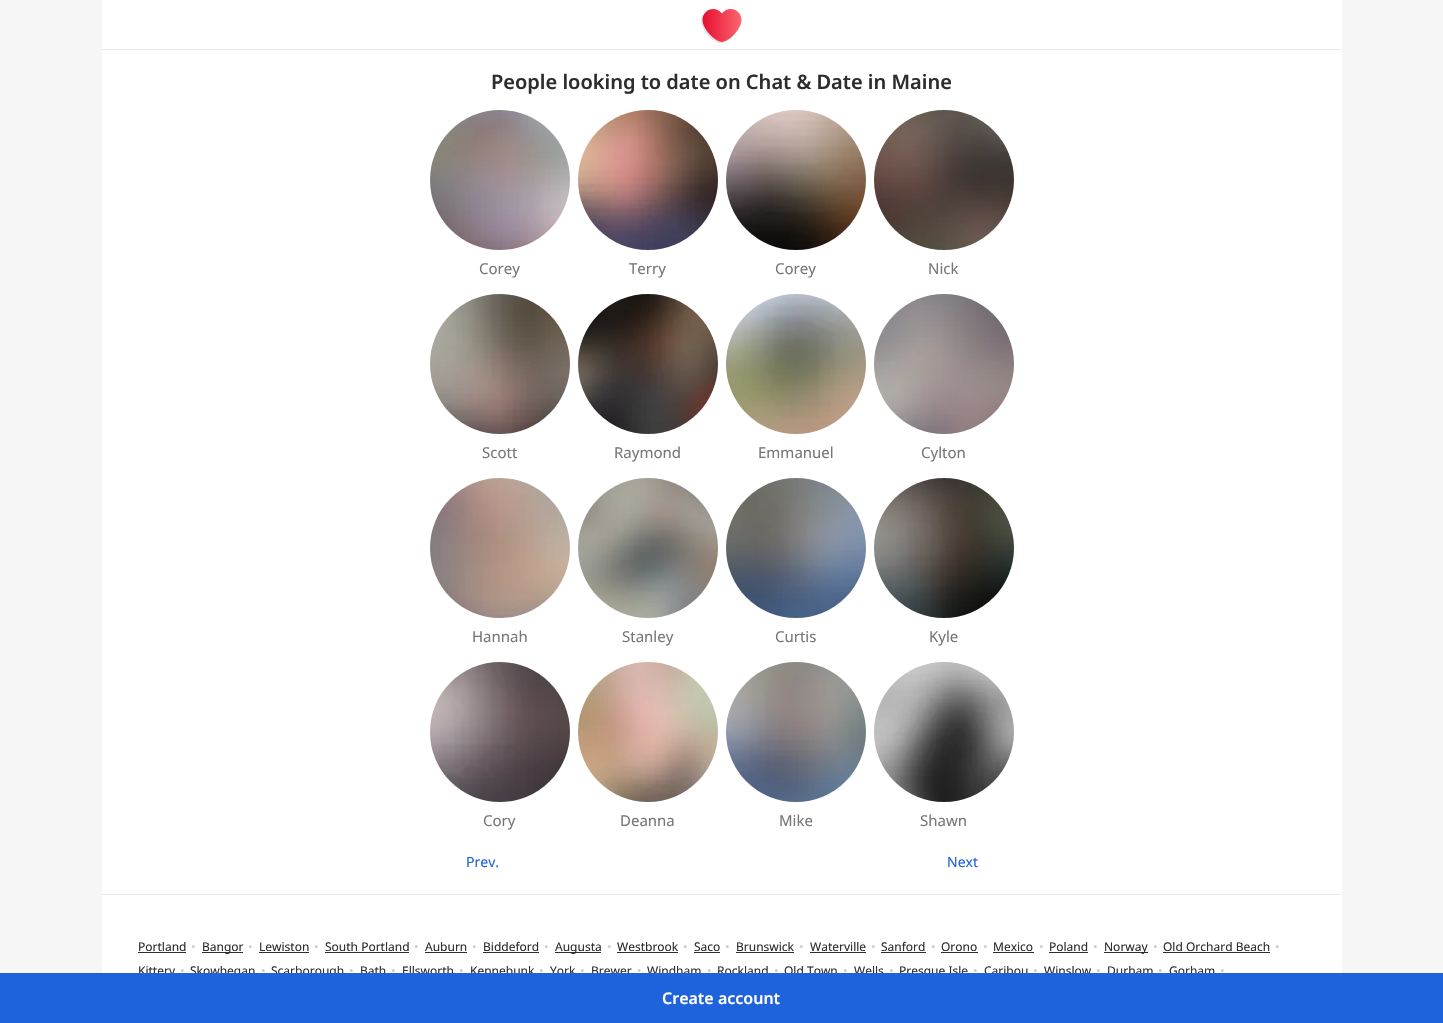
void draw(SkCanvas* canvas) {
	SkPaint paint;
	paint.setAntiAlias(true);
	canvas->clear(0xfff6f6f6);
	paint.setColor(0xffffffff);
	canvas->drawRect(SkRect::MakeXYWH(102, 0, 1240, 49), paint);
	paint.setColor(0xffeaeaea);
	canvas->drawRect(SkRect::MakeXYWH(102, 49, 1240, 1), paint);
	canvas->drawImageRect(SkImages::DeferredFromEncodedData(SkData::MakeFromFileName("img1.png")), SkRect::MakeXYWH(701, 9, 41, 34), SkSamplingOptions());
	paint.setColor(0xffffffff);
	canvas->drawRect(SkRect::MakeXYWH(102, 50, 1240, 923), paint);
	SkFont f1(fontMgr->matchFamilyStyle("Noto Sans", SkFontStyle(600, SkFontStyle::kNormal_Width, SkFontStyle::kUpright_Slant)), 20);
	f1.setSubpixel(true);
	paint.setColor(0xff2d2d2d);
	canvas->drawString("People looking to date on Chat & Date in Maine", 491, 89, f1, paint);
	canvas->drawImageRect(SkImages::DeferredFromEncodedData(SkData::MakeFromFileName("img2.png")), SkRect::MakeXYWH(430, 110, 140, 140), SkSamplingOptions());
	SkFont f2(fontMgr->matchFamilyStyle("Noto Sans", SkFontStyle::Normal()), 15);
	f2.setSubpixel(true);
	paint.setColor(0xff767676);
	canvas->drawString("Corey", 479, 274, f2, paint);
	canvas->drawImageRect(SkImages::DeferredFromEncodedData(SkData::MakeFromFileName("img3.png")), SkRect::MakeXYWH(578, 110, 140, 140), SkSamplingOptions());
	canvas->drawString("Terry", 629, 274, f2, paint);
	canvas->drawImageRect(SkImages::DeferredFromEncodedData(SkData::MakeFromFileName("img4.png")), SkRect::MakeXYWH(726, 110, 140, 140), SkSamplingOptions());
	canvas->drawString("Corey", 775, 274, f2, paint);
	canvas->drawImageRect(SkImages::DeferredFromEncodedData(SkData::MakeFromFileName("img5.png")), SkRect::MakeXYWH(874, 110, 140, 140), SkSamplingOptions());
	canvas->drawString("Nick", 928, 274, f2, paint);
	canvas->drawImageRect(SkImages::DeferredFromEncodedData(SkData::MakeFromFileName("img6.png")), SkRect::MakeXYWH(430, 294, 140, 140), SkSamplingOptions());
	canvas->drawString("Scott", 482, 458, f2, paint);
	canvas->drawImageRect(SkImages::DeferredFromEncodedData(SkData::MakeFromFileName("img7.png")), SkRect::MakeXYWH(578, 294, 140, 140), SkSamplingOptions());
	canvas->drawString("Raymond", 614, 458, f2, paint);
	canvas->drawImageRect(SkImages::DeferredFromEncodedData(SkData::MakeFromFileName("img8.png")), SkRect::MakeXYWH(726, 294, 140, 140), SkSamplingOptions());
	canvas->drawString("Emmanuel", 758, 458, f2, paint);
	canvas->drawImageRect(SkImages::DeferredFromEncodedData(SkData::MakeFromFileName("img9.png")), SkRect::MakeXYWH(874, 294, 140, 140), SkSamplingOptions());
	canvas->drawString("Cylton", 921, 458, f2, paint);
	canvas->drawImageRect(SkImages::DeferredFromEncodedData(SkData::MakeFromFileName("img10.png")), SkRect::MakeXYWH(430, 478, 140, 140), SkSamplingOptions());
	canvas->drawString("Hannah", 472, 642, f2, paint);
	canvas->drawImageRect(SkImages::DeferredFromEncodedData(SkData::MakeFromFileName("img11.png")), SkRect::MakeXYWH(578, 478, 140, 140), SkSamplingOptions());
	canvas->drawString("Stanley", 622, 642, f2, paint);
	canvas->drawImageRect(SkImages::DeferredFromEncodedData(SkData::MakeFromFileName("img12.png")), SkRect::MakeXYWH(726, 478, 140, 140), SkSamplingOptions());
	canvas->drawString("Curtis", 775, 642, f2, paint);
	canvas->drawImageRect(SkImages::DeferredFromEncodedData(SkData::MakeFromFileName("img13.png")), SkRect::MakeXYWH(874, 478, 140, 140), SkSamplingOptions());
	canvas->drawString("Kyle", 929, 642, f2, paint);
	canvas->drawImageRect(SkImages::DeferredFromEncodedData(SkData::MakeFromFileName("img14.png")), SkRect::MakeXYWH(430, 662, 140, 140), SkSamplingOptions());
	canvas->drawString("Cory", 483, 826, f2, paint);
	canvas->drawImageRect(SkImages::DeferredFromEncodedData(SkData::MakeFromFileName("img15.png")), SkRect::MakeXYWH(578, 662, 140, 140), SkSamplingOptions());
	canvas->drawString("Deanna", 620, 826, f2, paint);
	canvas->drawImageRect(SkImages::DeferredFromEncodedData(SkData::MakeFromFileName("img16.png")), SkRect::MakeXYWH(726, 662, 140, 140), SkSamplingOptions());
	canvas->drawString("Mike", 779, 826, f2, paint);
	canvas->drawImageRect(SkImages::DeferredFromEncodedData(SkData::MakeFromFileName("img17.png")), SkRect::MakeXYWH(874, 662, 140, 140), SkSamplingOptions());
	canvas->drawString("Shawn", 920, 826, f2, paint);
	SkFont f3(fontMgr->matchFamilyStyle("Noto Sans", SkFontStyle::Normal()), 14);
	f3.setSubpixel(true);
	paint.setColor(0xff1f63dc);
	canvas->drawString("Prev.", 466, 867, f3, paint);
	canvas->drawString("Next", 947, 867, f3, paint);
	paint.setColor(0xffeaeaea);
	canvas->drawRect(SkRect::MakeXYWH(102, 894, 1240, 1), paint);
	SkFont f4(fontMgr->matchFamilyStyle("Noto Sans", SkFontStyle::Normal()), 12);
	f4.setSubpixel(true);
	paint.setColor(0xff2d2d2d);
	canvas->drawString("Portland", 138, 951, f4, paint);
	canvas->drawRect(SkRect::MakeXYWH(138, 952, 48, 1), paint);
	paint.setColor(0xffcccccc);
	canvas->drawString("•", 191, 951, f4, paint);
	paint.setColor(0xff2d2d2d);
	canvas->drawRect(SkRect::MakeXYWH(202, 952, 41, 1), paint);
	canvas->drawString("Bangor", 202, 951, f4, paint);
	paint.setColor(0xffcccccc);
	canvas->drawString("•", 248, 951, f4, paint);
	paint.setColor(0xff2d2d2d);
	canvas->drawString("Lewiston", 259, 951, f4, paint);
	canvas->drawRect(SkRect::MakeXYWH(259, 952, 50, 1), paint);
	paint.setColor(0xffcccccc);
	canvas->drawString("•", 314, 951, f4, paint);
	paint.setColor(0xff2d2d2d);
	canvas->drawString("South Portland", 325, 951, f4, paint);
	canvas->drawRect(SkRect::MakeXYWH(325, 952, 84, 1), paint);
	paint.setColor(0xffcccccc);
	canvas->drawString("•", 414, 951, f4, paint);
	paint.setColor(0xff2d2d2d);
	canvas->drawString("Auburn", 425, 951, f4, paint);
	canvas->drawRect(SkRect::MakeXYWH(425, 952, 42, 1), paint);
	paint.setColor(0xffcccccc);
	canvas->drawString("•", 472, 951, f4, paint);
	paint.setColor(0xff2d2d2d);
	canvas->drawString("Biddeford", 483, 951, f4, paint);
	canvas->drawRect(SkRect::MakeXYWH(483, 952, 56, 1), paint);
	paint.setColor(0xffcccccc);
	canvas->drawString("•", 544, 951, f4, paint);
	paint.setColor(0xff2d2d2d);
	canvas->drawRect(SkRect::MakeXYWH(555, 952, 46, 1), paint);
	canvas->drawString("Augusta", 555, 951, f4, paint);
	paint.setColor(0xffcccccc);
	canvas->drawString("•", 607, 951, f4, paint);
	paint.setColor(0xff2d2d2d);
	canvas->drawString("Westbrook", 617, 951, f4, paint);
	canvas->drawRect(SkRect::MakeXYWH(617, 952, 61, 1), paint);
	paint.setColor(0xffcccccc);
	canvas->drawString("•", 683, 951, f4, paint);
	paint.setColor(0xff2d2d2d);
	canvas->drawString("Saco", 694, 951, f4, paint);
	canvas->drawRect(SkRect::MakeXYWH(694, 952, 26, 1), paint);
	paint.setColor(0xffcccccc);
	canvas->drawString("•", 725, 951, f4, paint);
	paint.setColor(0xff2d2d2d);
	canvas->drawString("Brunswick", 736, 951, f4, paint);
	canvas->drawRect(SkRect::MakeXYWH(736, 952, 58, 1), paint);
	paint.setColor(0xffcccccc);
	canvas->drawString("•", 799, 951, f4, paint);
	paint.setColor(0xff2d2d2d);
	canvas->drawString("Waterville", 810, 951, f4, paint);
	canvas->drawRect(SkRect::MakeXYWH(810, 952, 56, 1), paint);
	paint.setColor(0xffcccccc);
	canvas->drawString("•", 871, 951, f4, paint);
	paint.setColor(0xff2d2d2d);
	canvas->drawString("Sanford", 881, 951, f4, paint);
	canvas->drawRect(SkRect::MakeXYWH(881, 952, 45, 1), paint);
	paint.setColor(0xffcccccc);
	canvas->drawString("•", 931, 951, f4, paint);
	paint.setColor(0xff2d2d2d);
	canvas->drawString("Orono", 941, 951, f4, paint);
	canvas->drawRect(SkRect::MakeXYWH(941, 952, 37, 1), paint);
	paint.setColor(0xffcccccc);
	canvas->drawString("•", 983, 951, f4, paint);
	paint.setColor(0xff2d2d2d);
	canvas->drawString("Mexico", 993, 951, f4, paint);
	canvas->drawRect(SkRect::MakeXYWH(993, 952, 41, 1), paint);
	paint.setColor(0xffcccccc);
	canvas->drawString("•", 1039, 951, f4, paint);
	paint.setColor(0xff2d2d2d);
	canvas->drawString("Poland", 1049, 951, f4, paint);
	canvas->drawRect(SkRect::MakeXYWH(1049, 952, 39, 1), paint);
	paint.setColor(0xffcccccc);
	canvas->drawString("•", 1093, 951, f4, paint);
	paint.setColor(0xff2d2d2d);
	canvas->drawRect(SkRect::MakeXYWH(1104, 952, 44, 1), paint);
	canvas->drawString("Norway", 1104, 951, f4, paint);
	paint.setColor(0xffcccccc);
	canvas->drawString("•", 1153, 951, f4, paint);
	paint.setColor(0xff2d2d2d);
	canvas->drawString("Old Orchard Beach", 1163, 951, f4, paint);
	canvas->drawRect(SkRect::MakeXYWH(1163, 952, 107, 1), paint);
	paint.setColor(0xffcccccc);
	canvas->drawString("•", 1275, 951, f4, paint);
	paint.setColor(0xff2d2d2d);
	canvas->drawString("Kittery", 138, 975, f4, paint);
	paint.setColor(0xffcccccc);
	canvas->drawString("•", 180, 975, f4, paint);
	paint.setColor(0xff2d2d2d);
	canvas->drawString("Skowhegan", 190, 975, f4, paint);
	paint.setColor(0xffcccccc);
	canvas->drawString("•", 261, 975, f4, paint);
	paint.setColor(0xff2d2d2d);
	canvas->drawString("Scarborough", 271, 975, f4, paint);
	paint.setColor(0xffcccccc);
	canvas->drawString("•", 349, 975, f4, paint);
	paint.setColor(0xff2d2d2d);
	canvas->drawString("Bath", 360, 975, f4, paint);
	paint.setColor(0xffcccccc);
	canvas->drawString("•", 391, 975, f4, paint);
	paint.setColor(0xff2d2d2d);
	canvas->drawString("Ellsworth", 402, 975, f4, paint);
	paint.setColor(0xffcccccc);
	canvas->drawString("•", 459, 975, f4, paint);
	paint.setColor(0xff2d2d2d);
	canvas->drawString("Kennebunk", 470, 975, f4, paint);
	paint.setColor(0xffcccccc);
	canvas->drawString("•", 539, 975, f4, paint);
	paint.setColor(0xff2d2d2d);
	canvas->drawString("York", 550, 975, f4, paint);
	paint.setColor(0xffcccccc);
	canvas->drawString("•", 580, 975, f4, paint);
	paint.setColor(0xff2d2d2d);
	canvas->drawString("Brewer", 591, 975, f4, paint);
	paint.setColor(0xffcccccc);
	canvas->drawString("•", 637, 975, f4, paint);
	paint.setColor(0xff2d2d2d);
	canvas->drawString("Windham", 647, 975, f4, paint);
	paint.setColor(0xffcccccc);
	canvas->drawString("•", 707, 975, f4, paint);
	paint.setColor(0xff2d2d2d);
	canvas->drawString("Rockland", 717, 975, f4, paint);
	paint.setColor(0xffcccccc);
	canvas->drawString("•", 774, 975, f4, paint);
	paint.setColor(0xff2d2d2d);
	canvas->drawString("Old Town", 784, 975, f4, paint);
	paint.setColor(0xffcccccc);
	canvas->drawString("•", 843, 975, f4, paint);
	paint.setColor(0xff2d2d2d);
	canvas->drawString("Wells", 854, 975, f4, paint);
	paint.setColor(0xffcccccc);
	canvas->drawString("•", 889, 975, f4, paint);
	paint.setColor(0xff2d2d2d);
	canvas->drawString("Presque Isle", 899, 975, f4, paint);
	paint.setColor(0xffcccccc);
	canvas->drawString("•", 973, 975, f4, paint);
	paint.setColor(0xff2d2d2d);
	canvas->drawString("Caribou", 984, 975, f4, paint);
	paint.setColor(0xffcccccc);
	canvas->drawString("•", 1033, 975, f4, paint);
	paint.setColor(0xff2d2d2d);
	canvas->drawString("Winslow", 1044, 975, f4, paint);
	paint.setColor(0xffcccccc);
	canvas->drawString("•", 1096, 975, f4, paint);
	paint.setColor(0xff2d2d2d);
	canvas->drawString("Durham", 1107, 975, f4, paint);
	paint.setColor(0xffcccccc);
	canvas->drawString("•", 1158, 975, f4, paint);
	paint.setColor(0xff2d2d2d);
	canvas->drawString("Gorham", 1169, 975, f4, paint);
	paint.setColor(0xffcccccc);
	canvas->drawString("•", 1220, 975, f4, paint);
	paint.setColor(0xff1f63dc);
	canvas->drawRect(SkRect::MakeXYWH(0, 973, 1443, 50), paint);
	SkFont f5(fontMgr->matchFamilyStyle("Noto Sans", SkFontStyle(600, SkFontStyle::kNormal_Width, SkFontStyle::kUpright_Slant)), 16);
	f5.setSubpixel(true);
	paint.setColor(0xffffffff);
	canvas->drawString("Create account", 662, 1004, f5, paint);
}
